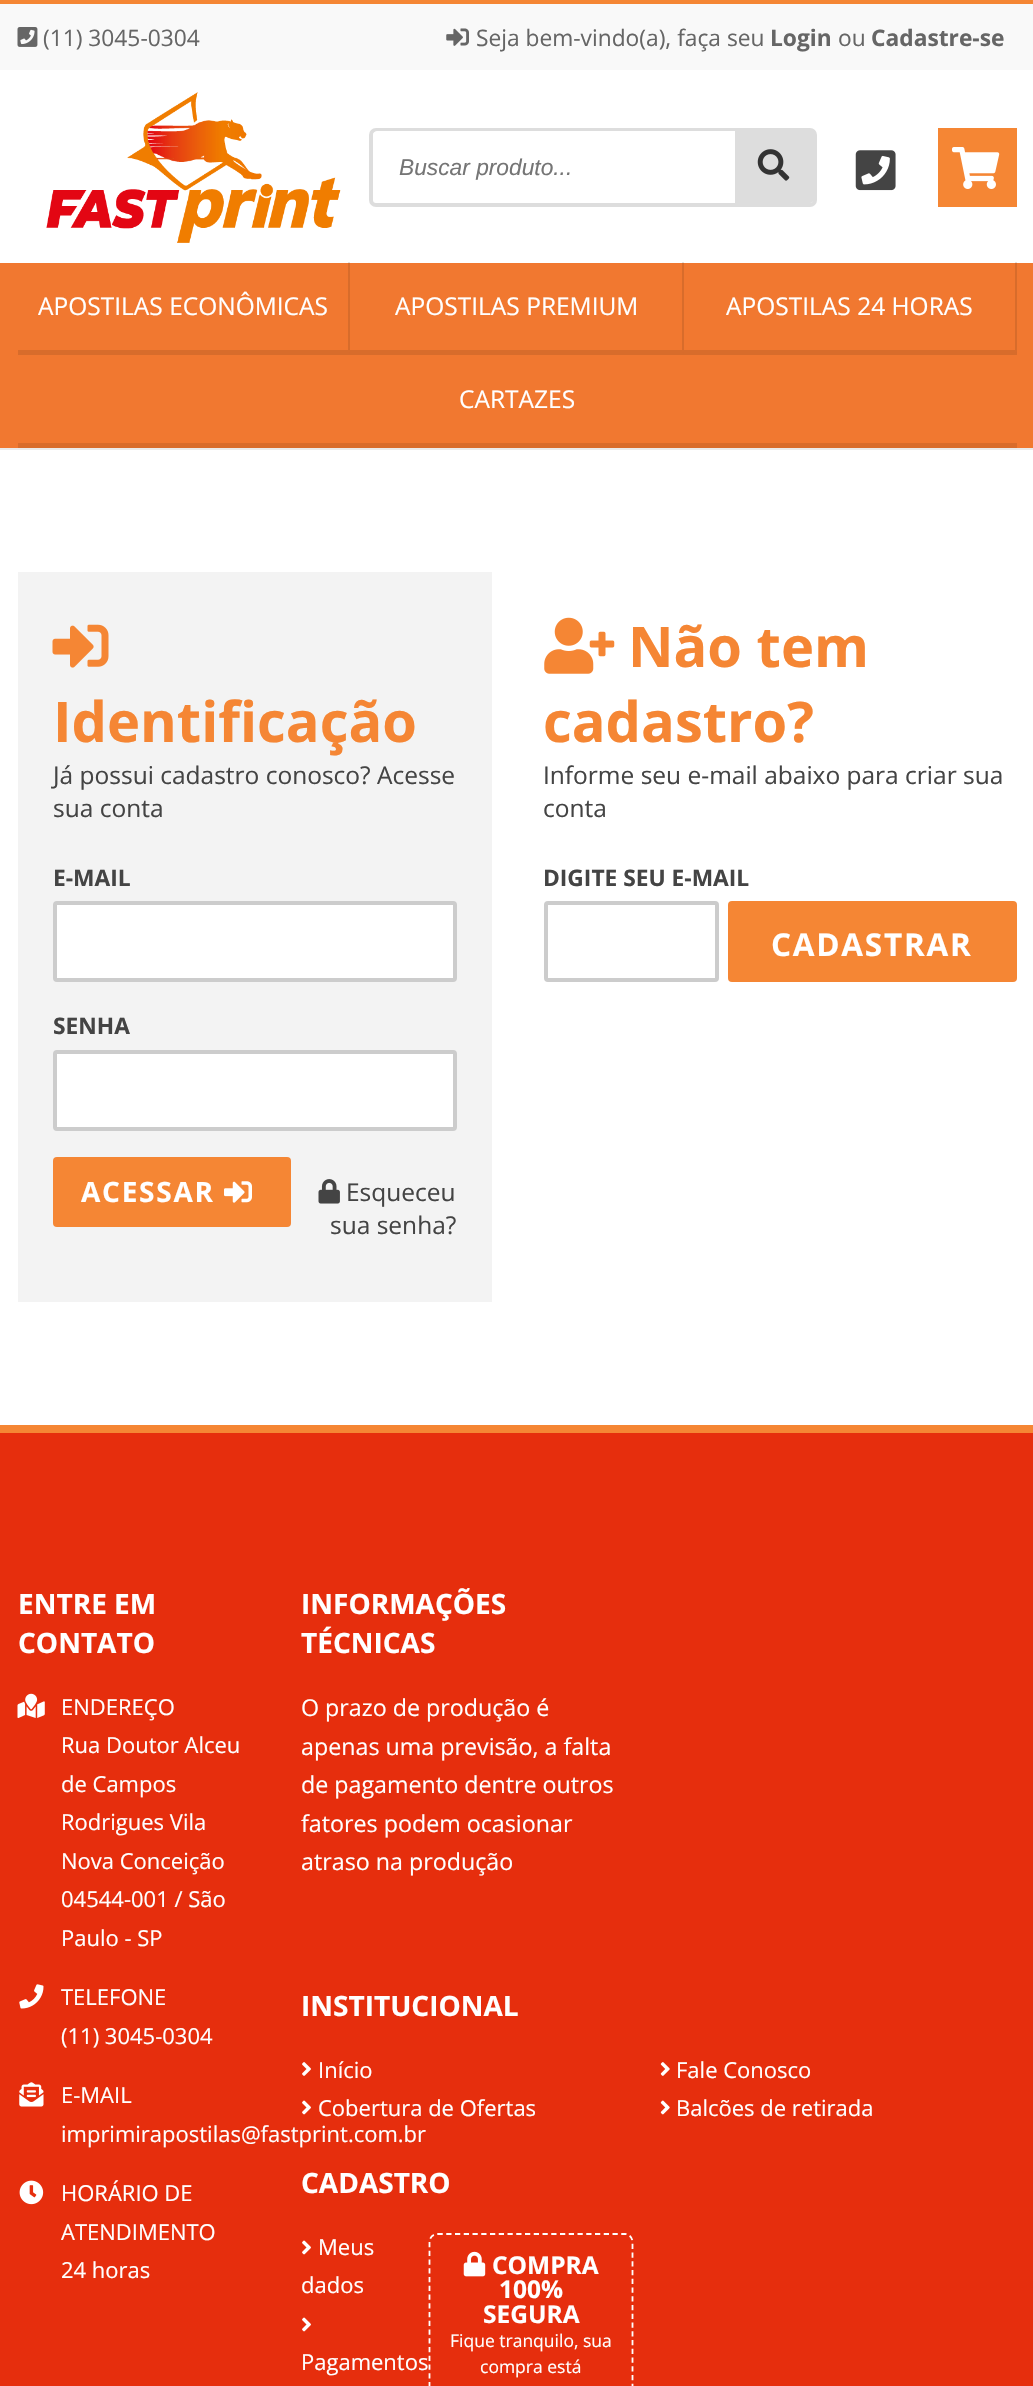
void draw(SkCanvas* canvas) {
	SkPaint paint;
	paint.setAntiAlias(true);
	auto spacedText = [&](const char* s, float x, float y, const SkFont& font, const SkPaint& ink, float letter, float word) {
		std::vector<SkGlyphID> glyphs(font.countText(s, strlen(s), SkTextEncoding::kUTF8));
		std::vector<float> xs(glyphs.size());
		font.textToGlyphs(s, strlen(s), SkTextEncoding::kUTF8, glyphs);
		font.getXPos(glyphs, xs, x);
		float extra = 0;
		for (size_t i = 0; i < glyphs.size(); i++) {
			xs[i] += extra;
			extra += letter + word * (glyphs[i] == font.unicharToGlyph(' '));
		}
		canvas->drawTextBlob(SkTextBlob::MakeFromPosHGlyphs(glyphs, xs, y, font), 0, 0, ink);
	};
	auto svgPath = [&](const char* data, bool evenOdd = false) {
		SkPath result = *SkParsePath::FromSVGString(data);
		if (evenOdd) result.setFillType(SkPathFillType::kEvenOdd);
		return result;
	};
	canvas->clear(0xffffffff);
	paint.setColor(0xffebebeb);
	canvas->drawRect(SkRect::MakeXYWH(0, 448, 1033, 2), paint);
	paint.setColor(0xfff9f9f9);
	canvas->drawRect(SkRect::MakeXYWH(0, 4, 1033, 66), paint);
	paint.setColor(0xfff58634);
	canvas->drawRect(SkRect::MakeXYWH(0, 0, 1033, 4), paint);
	canvas->drawImageRect(SkImages::DeferredFromEncodedData(SkData::MakeFromFileName("img1.png")), SkRect::MakeXYWH(17, 27, 21, 20), SkSamplingOptions());
	SkFont f1(fontMgr->matchFamilyStyle("Open Sans", SkFontStyle::Normal()), 22.75);
	f1.setSubpixel(true);
	paint.setColor(0xff666666);
	canvas->drawString("(11) 3045-0304", 43, 46, f1, paint);
	canvas->drawImageRect(SkImages::DeferredFromEncodedData(SkData::MakeFromFileName("img2.png")), SkRect::MakeXYWH(446, 28, 23, 18), SkSamplingOptions());
	canvas->drawString("Seja bem-vindo(a), faça seu", 476, 46, f1, paint);
	SkFont f2(fontMgr->matchFamilyStyle("Open Sans", SkFontStyle::Bold()), 22.75);
	f2.setSubpixel(true);
	canvas->drawString("Login", 770, 46, f2, paint);
	canvas->drawString("ou", 838, 46, f1, paint);
	canvas->drawString("Cadastre-se", 871, 46, f2, paint);
	canvas->drawImageRect(SkImages::DeferredFromEncodedData(SkData::MakeFromFileName("img3.png")), SkRect::MakeXYWH(46, 92, 295, 151), SkSamplingOptions());
	paint.setStroke(true);
	paint.setStrokeWidth(4);
	paint.setColor(0xffdddddd);
	canvas->drawRoundRect(SkRect::MakeXYWH(371, 130, 444, 75), 5, 5, paint);
	paint.setStroke(false);
	paint.setColor(0xffffffff);
	canvas->drawPath(svgPath("M377 131H735V203H377C375 203 373 201 373 199V135C373 133 375 131 377 131Z"), paint);
	SkFont f3(fontMgr->matchFamilyStyle("Liberation Sans", SkFontStyle::Italic()), 22.75);
	f3.setSubpixel(true);
	paint.setColor(0xff757575);
	canvas->drawString("Buscar produto...", 399, 175, f3, paint);
	paint.setColor(0xffdddddd);
	canvas->drawPath(svgPath("M735 131H810C812 131 814 133 814 135V199C814 201 812 203 810 203H735Z"), paint);
	canvas->drawImageRect(SkImages::DeferredFromEncodedData(SkData::MakeFromFileName("img4.png")), SkRect::MakeXYWH(757, 149, 33, 32), SkSamplingOptions());
	canvas->drawImageRect(SkImages::DeferredFromEncodedData(SkData::MakeFromFileName("img5.png")), SkRect::MakeXYWH(855, 150, 41, 41), SkSamplingOptions());
	paint.setColor(0xfff58634);
	canvas->drawRect(SkRect::MakeXYWH(938, 128, 79, 79), paint);
	canvas->drawImageRect(SkImages::DeferredFromEncodedData(SkData::MakeFromFileName("img6.png")), SkRect::MakeXYWH(952, 147, 48, 42), SkSamplingOptions());
	paint.setColor(0xfff17830);
	canvas->drawRect(SkRect::MakeXYWH(0, 263, 1033, 185), paint);
	paint.setColor(0x1a000000);
	canvas->drawPath(svgPath("M350 262V355L348 350V262Z"), paint);
	canvas->drawPath(svgPath("M350 355H18V350H348Z"), paint);
	SkFont f4(fontMgr->matchFamilyStyle("Open Sans", SkFontStyle::Normal()), 24.5);
	f4.setSubpixel(true);
	paint.setColor(0xffffffff);
	canvas->drawString("APOSTILAS ECONÔMICAS", 38, 315, f4, paint);
	paint.setColor(0x1a000000);
	canvas->drawPath(svgPath("M684 262V355L682 350V262Z"), paint);
	canvas->drawPath(svgPath("M684 355H350V350H682Z"), paint);
	paint.setColor(0xffffffff);
	canvas->drawString("APOSTILAS PREMIUM", 395, 315, f4, paint);
	paint.setColor(0x1a000000);
	canvas->drawPath(svgPath("M1017 262V355L1015 350V262Z"), paint);
	canvas->drawPath(svgPath("M1017 355H684V350H1015Z"), paint);
	paint.setColor(0xffffffff);
	canvas->drawString("APOSTILAS 24 HORAS", 726, 315, f4, paint);
	paint.setColor(0xffd96c2b);
	canvas->drawRect(SkRect::MakeXYWH(18, 443, 999, 5), paint);
	paint.setColor(0xffffffff);
	canvas->drawString("CARTAZES", 459, 408, f4, paint);
	paint.setColor(0xfff3f3f3);
	canvas->drawRect(SkRect::MakeXYWH(18, 572, 474, 730), paint);
	canvas->drawImageRect(SkImages::DeferredFromEncodedData(SkData::MakeFromFileName("img7.png")), SkRect::MakeXYWH(52, 624, 57, 44), SkSamplingOptions());
	SkFont f5(fontMgr->matchFamilyStyle("Open Sans", SkFontStyle::Bold()), 56);
	f5.setSubpixel(true);
	paint.setColor(0xfff58634);
	canvas->drawString("Identificação", 53, 742, f5, paint);
	paint.setColor(0xff444444);
	canvas->drawString("Já possui cadastro conosco? Acesse", 53, 784, f4, paint);
	canvas->drawString("sua conta", 53, 817, f4, paint);
	canvas->drawString("E-MAIL", 53, 886, f2, paint);
	paint.setColor(0xffffffff);
	canvas->drawRoundRect(SkRect::MakeXYWH(55, 903, 400, 77), 2, 2, paint);
	paint.setStroke(true);
	paint.setColor(0xffcccccc);
	canvas->drawRoundRect(SkRect::MakeXYWH(55, 903, 400, 77), 2, 2, paint);
	paint.setStroke(false);
	paint.setColor(0xff444444);
	canvas->drawString("SENHA", 53, 1034, f2, paint);
	paint.setColor(0xffffffff);
	canvas->drawRoundRect(SkRect::MakeXYWH(55, 1052, 400, 77), 2, 2, paint);
	paint.setStroke(true);
	paint.setColor(0xffcccccc);
	canvas->drawRoundRect(SkRect::MakeXYWH(55, 1052, 400, 77), 2, 2, paint);
	paint.setStroke(false);
	paint.setColor(0xfff58634);
	canvas->drawRoundRect(SkRect::MakeXYWH(53, 1157, 238, 70), 4, 4, paint);
	SkFont f6(fontMgr->matchFamilyStyle("Open Sans", SkFontStyle::Bold()), 28);
	f6.setSubpixel(true);
	paint.setColor(0xffffffff);
	spacedText("ACESSAR", 81, 1202, f6, paint, 1.75, 0);
	canvas->drawImageRect(SkImages::DeferredFromEncodedData(SkData::MakeFromFileName("img8.png")), SkRect::MakeXYWH(224, 1181, 28, 22), SkSamplingOptions());
	canvas->drawImageRect(SkImages::DeferredFromEncodedData(SkData::MakeFromFileName("img9.png")), SkRect::MakeXYWH(318, 1179, 22, 25), SkSamplingOptions());
	paint.setColor(0xff444444);
	canvas->drawString("Esqueceu", 346, 1201, f4, paint);
	canvas->drawString("sua senha?", 330, 1234, f4, paint);
	canvas->drawImageRect(SkImages::DeferredFromEncodedData(SkData::MakeFromFileName("img10.png")), SkRect::MakeXYWH(544, 617, 71, 57), SkSamplingOptions());
	paint.setColor(0xfff58634);
	canvas->drawString("Não tem", 628, 667, f5, paint);
	canvas->drawString("cadastro?", 543, 742, f5, paint);
	paint.setColor(0xff444444);
	canvas->drawString("Informe seu e-mail abaixo para criar sua", 543, 784, f4, paint);
	canvas->drawString("conta", 543, 817, f4, paint);
	canvas->drawString("DIGITE SEU E-MAIL", 543, 886, f2, paint);
	paint.setStroke(true);
	paint.setColor(0xffcccccc);
	canvas->drawRoundRect(SkRect::MakeXYWH(546, 903, 171, 77), 2, 2, paint);
	paint.setStroke(false);
	paint.setColor(0xfff58634);
	canvas->drawRoundRect(SkRect::MakeXYWH(728, 901, 289, 81), 4, 4, paint);
	SkFont f7(fontMgr->matchFamilyStyle("Open Sans", SkFontStyle::Bold()), 31.5);
	f7.setSubpixel(true);
	paint.setColor(0xffffffff);
	spacedText("CADASTRAR", 771, 956, f7, paint, 1.75, 0);
	paint.setColor(0xffe62e0d);
	canvas->drawRect(SkRect::MakeXYWH(0, 1433, 1033, 953), paint);
	paint.setColor(0xfff58634);
	canvas->drawRect(SkRect::MakeXYWH(0, 1425, 1033, 8), paint);
	paint.setColor(0xffffffff);
	canvas->drawString("ENTRE EM", 18, 1614, f6, paint);
	canvas->drawString("CONTATO", 18, 1653, f6, paint);
	canvas->drawImageRect(SkImages::DeferredFromEncodedData(SkData::MakeFromFileName("img11.png")), SkRect::MakeXYWH(17, 1693, 28, 25), SkSamplingOptions());
	SkFont f8(fontMgr->matchFamilyStyle("Open Sans", SkFontStyle::Normal()), 22);
	f8.setSubpixel(true);
	canvas->drawString("ENDEREÇO", 61, 1715, f8, paint);
	canvas->drawString("Rua Doutor Alceu", 61, 1753, f8, paint);
	canvas->drawString("de Campos", 61, 1792, f8, paint);
	canvas->drawString("Rodrigues Vila", 61, 1830, f8, paint);
	canvas->drawString("Nova Conceição", 61, 1869, f8, paint);
	canvas->drawString("04544-001 / São", 61, 1907, f8, paint);
	canvas->drawString("Paulo - SP", 61, 1946, f8, paint);
	canvas->drawImageRect(SkImages::DeferredFromEncodedData(SkData::MakeFromFileName("img12.png")), SkRect::MakeXYWH(19, 1984, 25, 25), SkSamplingOptions());
	canvas->drawString("TELEFONE", 61, 2005, f8, paint);
	canvas->drawString("(11) 3045-0304", 61, 2044, f8, paint);
	canvas->drawImageRect(SkImages::DeferredFromEncodedData(SkData::MakeFromFileName("img13.png")), SkRect::MakeXYWH(19, 2082, 25, 25), SkSamplingOptions());
	canvas->drawString("E-MAIL", 61, 2103, f8, paint);
	canvas->drawString("imprimirapostilas@fastprint.com.br", 61, 2142, f8, paint);
	canvas->drawImageRect(SkImages::DeferredFromEncodedData(SkData::MakeFromFileName("img14.png")), SkRect::MakeXYWH(19, 2180, 25, 25), SkSamplingOptions());
	canvas->drawString("HORÁRIO DE", 61, 2201, f8, paint);
	canvas->drawString("ATENDIMENTO", 61, 2240, f8, paint);
	canvas->drawString("24 horas", 61, 2278, f8, paint);
	canvas->drawString("INFORMAÇÕES", 301, 1614, f6, paint);
	canvas->drawString("TÉCNICAS", 301, 1653, f6, paint);
	SkFont f9(fontMgr->matchFamilyStyle("Open Sans", SkFontStyle::Normal()), 23.25);
	f9.setSubpixel(true);
	canvas->drawString("O prazo de produção é", 301, 1716, f9, paint);
	canvas->drawString("apenas uma previsão, a falta", 301, 1755, f9, paint);
	canvas->drawString("de pagamento dentre outros", 301, 1793, f9, paint);
	canvas->drawString("fatores podem ocasionar", 301, 1832, f9, paint);
	canvas->drawString("atraso na produção", 301, 1870, f9, paint);
	canvas->drawString("INSTITUCIONAL", 301, 2016, f6, paint);
	canvas->drawImageRect(SkImages::DeferredFromEncodedData(SkData::MakeFromFileName("img15.png")), SkRect::MakeXYWH(302, 2062, 9, 14), SkSamplingOptions());
	canvas->drawString("Início", 318, 2078, f8, paint);
	canvas->drawImageRect(SkImages::DeferredFromEncodedData(SkData::MakeFromFileName("img16.png")), SkRect::MakeXYWH(660, 2062, 10, 14), SkSamplingOptions());
	canvas->drawString("Fale Conosco", 676, 2078, f8, paint);
	canvas->drawImageRect(SkImages::DeferredFromEncodedData(SkData::MakeFromFileName("img17.png")), SkRect::MakeXYWH(302, 2100, 9, 15), SkSamplingOptions());
	canvas->drawString("Cobertura de Ofertas", 318, 2116, f8, paint);
	canvas->drawImageRect(SkImages::DeferredFromEncodedData(SkData::MakeFromFileName("img18.png")), SkRect::MakeXYWH(660, 2100, 10, 15), SkSamplingOptions());
	canvas->drawString("Balcões de retirada", 676, 2116, f8, paint);
	canvas->drawString("CADASTRO", 301, 2193, f6, paint);
	canvas->drawImageRect(SkImages::DeferredFromEncodedData(SkData::MakeFromFileName("img17.png")), SkRect::MakeXYWH(302, 2240, 9, 15), SkSamplingOptions());
	canvas->drawString("Meus", 318, 2255, f8, paint);
	canvas->drawString("dados", 301, 2293, f8, paint);
	canvas->drawImageRect(SkImages::DeferredFromEncodedData(SkData::MakeFromFileName("img17.png")), SkRect::MakeXYWH(302, 2317, 9, 15), SkSamplingOptions());
	canvas->drawString("Pagamentos", 301, 2370, f8, paint);
	paint.setStroke(true);
	paint.setStrokeWidth(1.8);
	paint.setPathEffect(SkDashPathEffect::Make({{5.25f, 3.5f}}, 0));
	canvas->drawPath(svgPath("M437.5 2234H625C629 2234 632.5 2237.5 632.5 2242V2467.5C632.5 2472 629 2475.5 625 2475.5H437.5C433 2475.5 429.5 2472 429.5 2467.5V2242C429.5 2237.5 433 2234 437.5 2234Z"), paint);
	paint.setPathEffect(nullptr);
	canvas->drawImageRect(SkImages::DeferredFromEncodedData(SkData::MakeFromFileName("img19.png")), SkRect::MakeXYWH(463, 2251, 23, 26), SkSamplingOptions());
	SkFont f10(fontMgr->matchFamilyStyle("Open Sans", SkFontStyle::Bold()), 24.5);
	f10.setSubpixel(true);
	paint.setStroke(false);
	canvas->drawString("COMPRA", 492, 2274, f10, paint);
	canvas->drawString("100%", 499, 2298, f10, paint);
	canvas->drawString("SEGURA", 483, 2323, f10, paint);
	SkFont f11(fontMgr->matchFamilyStyle("Open Sans", SkFontStyle::Normal()), 17.5);
	f11.setSubpixel(true);
	canvas->drawString("Fique tranquilo, sua", 450, 2347, f11, paint);
	canvas->drawString("compra está", 480, 2373, f11, paint);
}
